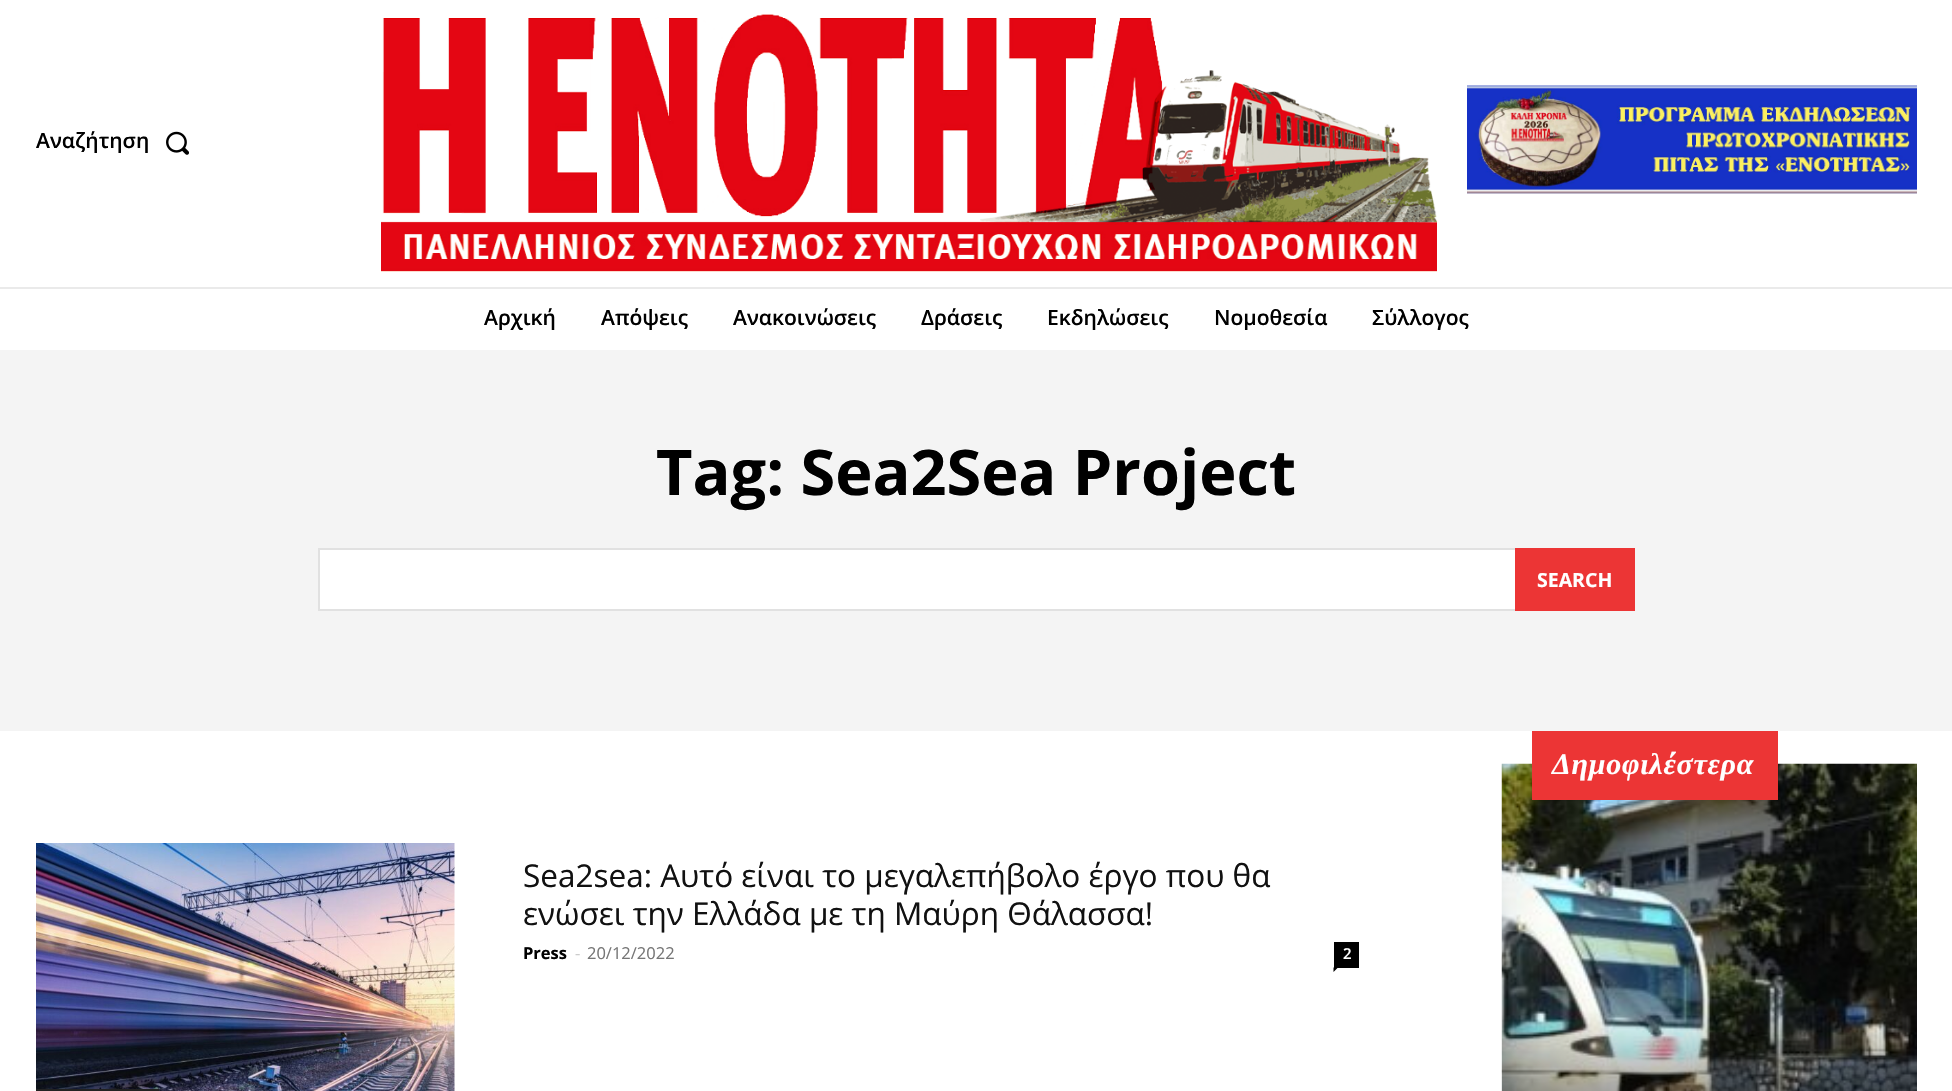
void draw(SkCanvas* canvas) {
	SkPaint paint;
	paint.setAntiAlias(true);
	auto spacedText = [&](const char* s, float x, float y, const SkFont& font, const SkPaint& ink, float letter, float word) {
		std::vector<SkGlyphID> glyphs(font.countText(s, strlen(s), SkTextEncoding::kUTF8));
		std::vector<float> xs(glyphs.size());
		font.textToGlyphs(s, strlen(s), SkTextEncoding::kUTF8, glyphs);
		font.getXPos(glyphs, xs, x);
		float extra = 0;
		for (size_t i = 0; i < glyphs.size(); i++) {
			xs[i] += extra;
			extra += letter + word * (glyphs[i] == font.unicharToGlyph(' '));
		}
		canvas->drawTextBlob(SkTextBlob::MakeFromPosHGlyphs(glyphs, xs, y, font), 0, 0, ink);
	};
	auto svgPath = [&](const char* data, bool evenOdd = false) {
		SkPath result = *SkParsePath::FromSVGString(data);
		if (evenOdd) result.setFillType(SkPathFillType::kEvenOdd);
		return result;
	};
	canvas->clear(0xffffffff);
	SkFont f1(fontMgr->matchFamilyStyle("Open Sans", SkFontStyle(600, SkFontStyle::kNormal_Width, SkFontStyle::kUpright_Slant)), 21);
	f1.setSubpixel(true);
	paint.setColor(0xff000000);
	canvas->drawString("Αναζήτηση", 36, 148, f1, paint);
	canvas->drawImageRect(SkImages::DeferredFromEncodedData(SkData::MakeFromFileName("img1.png")), SkRect::MakeXYWH(166, 131, 23, 24), SkSamplingOptions());
	canvas->drawImageRect(SkImages::DeferredFromEncodedData(SkData::MakeFromFileName("img2.png")), SkRect::MakeXYWH(381, 14, 1056, 258), SkSamplingOptions());
	canvas->drawImageRect(SkImages::DeferredFromEncodedData(SkData::MakeFromFileName("img3.png")), SkRect::MakeXYWH(1467, 85, 450, 109), SkSamplingOptions());
	paint.setColor(0xffeaeaea);
	canvas->drawRect(SkRect::MakeXYWH(0, 287, 1952, 2), paint);
	paint.setColor(0xff000000);
	canvas->drawString("Αρχική", 484, 325, f1, paint);
	canvas->drawString("Απόψεις", 601, 325, f1, paint);
	canvas->drawString("Ανακοινώσεις", 733, 325, f1, paint);
	canvas->drawString("Δράσεις", 921, 325, f1, paint);
	canvas->drawString("Εκδηλώσεις", 1047, 325, f1, paint);
	canvas->drawString("Νομοθεσία", 1214, 325, f1, paint);
	canvas->drawString("Σύλλογος", 1372, 325, f1, paint);
	paint.setColor(0xfff4f4f4);
	canvas->drawRect(SkRect::MakeXYWH(0, 350, 1952, 381), paint);
	SkFont f2(fontMgr->matchFamilyStyle("Open Sans", SkFontStyle::Bold()), 63);
	f2.setSubpixel(true);
	paint.setColor(0xff000000);
	canvas->drawString("Tag: Sea2Sea Project", 656, 495, f2, paint);
	paint.setColor(0xffffffff);
	canvas->drawRect(SkRect::MakeXYWH(320, 550, 1195, 59), paint);
	paint.setStroke(true);
	paint.setStrokeWidth(2);
	paint.setColor(0xffe1e1e1);
	canvas->drawRect(SkRect::MakeXYWH(319, 549, 1315, 61), paint);
	paint.setStroke(false);
	paint.setColor(0xffec3535);
	canvas->drawRect(SkRect::MakeXYWH(1515, 548, 120, 63), paint);
	SkFont f3(fontMgr->matchFamilyStyle("Open Sans", SkFontStyle::Bold()), 19.5);
	f3.setSubpixel(true);
	paint.setColor(0xffffffff);
	canvas->drawString("SEARCH", 1537, 587, f3, paint);
	canvas->drawImageRect(SkImages::DeferredFromEncodedData(SkData::MakeFromFileName("img4.png")), SkRect::MakeXYWH(1501, 763, 416, 328), SkSamplingOptions());
	paint.setColor(0xffec3535);
	canvas->drawRect(SkRect::MakeXYWH(1532, 731, 246, 69), paint);
	SkFont f4(fontMgr->matchFamilyStyle("Liberation Serif", SkFontStyle::BoldItalic()), 30);
	f4.setSubpixel(true);
	paint.setColor(0xffffffff);
	spacedText("Δημοφιλέστερα", 1552, 774, f4, paint, 0.75, 0);
	canvas->drawImageRect(SkImages::DeferredFromEncodedData(SkData::MakeFromFileName("img5.png")), SkRect::MakeXYWH(36, 843, 419, 248), SkSamplingOptions());
	paint.setColor(0xff222222);
	canvas->drawRect(SkRect::MakeXYWH(36, 1089, 123, 2), paint);
	SkFont f5(fontMgr->matchFamilyStyle("Open Sans", SkFontStyle::Normal()), 31.5);
	f5.setSubpixel(true);
	paint.setColor(0xff111111);
	canvas->drawString("Sea2sea: Αυτό είναι το μεγαλεπήβολο έργο που θα", 523, 887, f5, paint);
	canvas->drawString("ενώσει την Ελλάδα με τη Μαύρη Θάλασσα!", 523, 925, f5, paint);
	SkFont f6(fontMgr->matchFamilyStyle("Open Sans", SkFontStyle::Bold()), 16.5);
	f6.setSubpixel(true);
	paint.setColor(0xff000000);
	canvas->drawString("Press", 523, 959, f6, paint);
	SkFont f7(fontMgr->matchFamilyStyle("Open Sans", SkFontStyle::Normal()), 16.5);
	f7.setSubpixel(true);
	paint.setColor(0xffcccccc);
	canvas->drawString("-", 575, 959, f7, paint);
	paint.setColor(0xff767676);
	canvas->drawString("20/12/2022", 587, 959, f7, paint);
	paint.setColor(0xff000000);
	canvas->drawRect(SkRect::MakeXYWH(1334, 942, 25, 26), paint);
	SkFont f8(fontMgr->matchFamilyStyle("Open Sans", SkFontStyle(600, SkFontStyle::kNormal_Width, SkFontStyle::kUpright_Slant)), 15);
	f8.setSubpixel(true);
	paint.setColor(0xffffffff);
	canvas->drawString("2", 1343, 959, f8, paint);
	paint.setColor(0xff000000);
	canvas->drawPath(svgPath("M1333.5 967.5H1338L1333.5 972Z"), paint);
}
